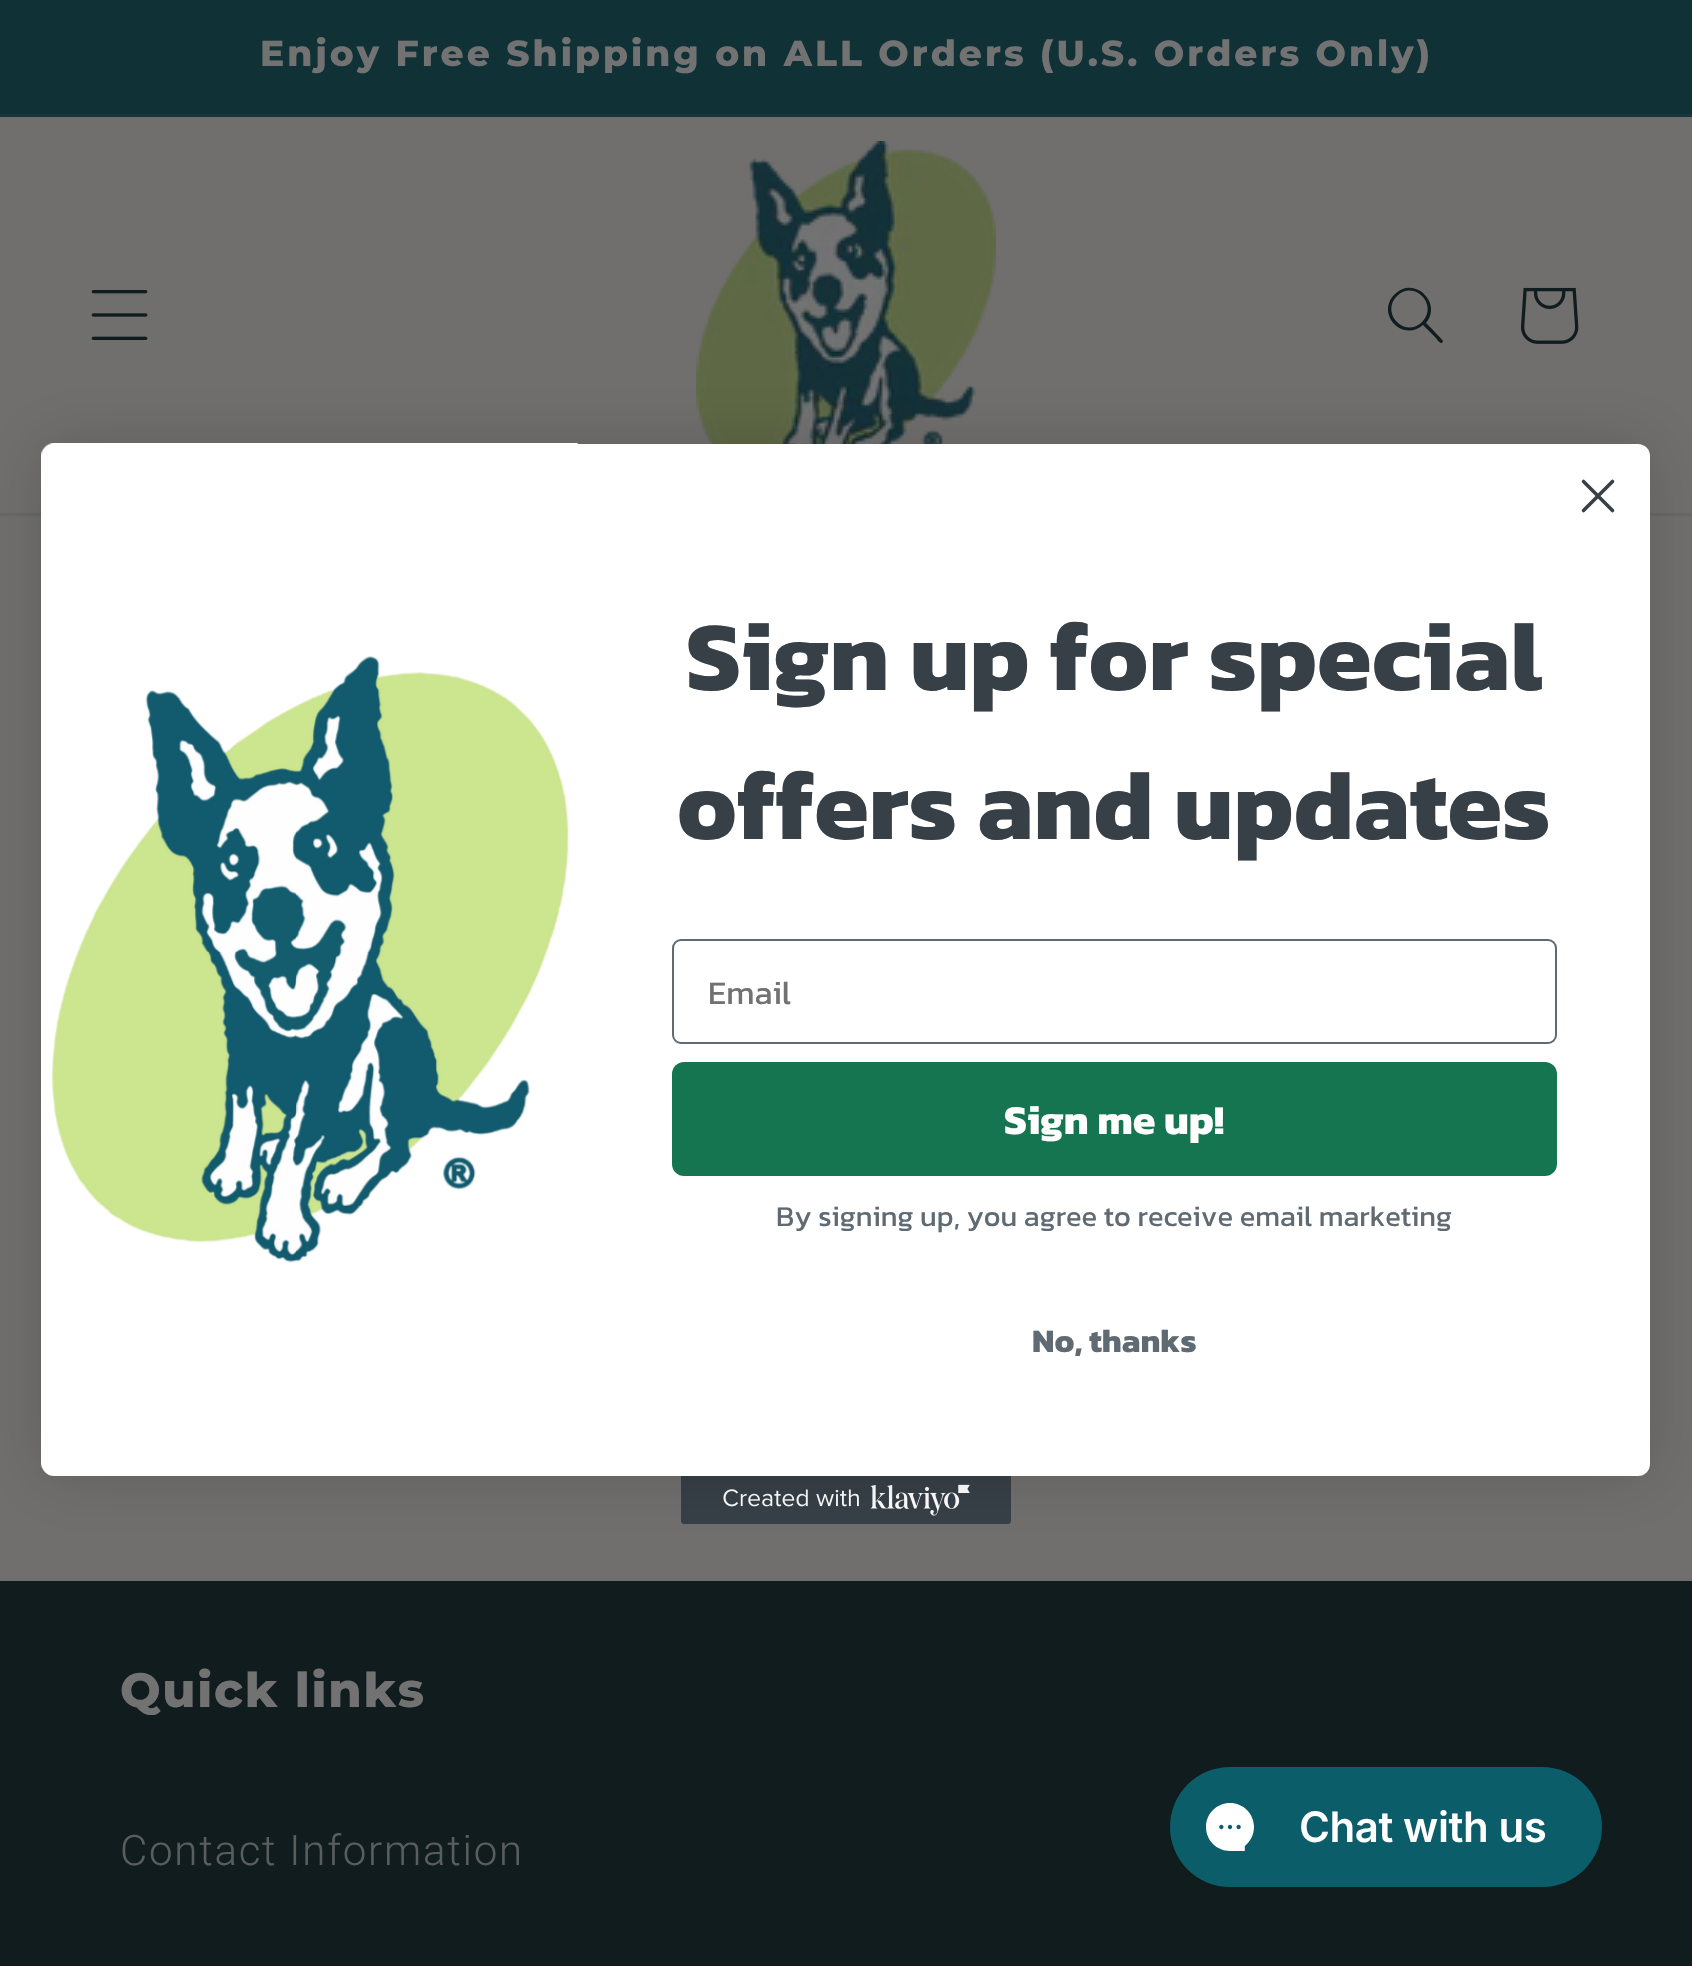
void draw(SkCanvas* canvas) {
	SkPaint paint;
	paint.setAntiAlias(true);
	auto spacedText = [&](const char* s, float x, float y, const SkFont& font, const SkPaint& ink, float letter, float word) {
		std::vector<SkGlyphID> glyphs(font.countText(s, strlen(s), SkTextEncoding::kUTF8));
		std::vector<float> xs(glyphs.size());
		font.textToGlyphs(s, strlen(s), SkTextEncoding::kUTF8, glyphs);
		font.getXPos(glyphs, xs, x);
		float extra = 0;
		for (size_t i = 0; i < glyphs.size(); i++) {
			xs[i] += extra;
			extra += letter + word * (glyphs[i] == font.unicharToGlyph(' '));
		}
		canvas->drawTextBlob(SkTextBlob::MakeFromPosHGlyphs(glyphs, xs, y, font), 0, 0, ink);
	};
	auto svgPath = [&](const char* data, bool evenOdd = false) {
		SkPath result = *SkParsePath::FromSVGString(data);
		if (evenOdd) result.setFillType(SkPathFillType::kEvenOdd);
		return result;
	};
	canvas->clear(0xff706f6e);
	paint.setColor(0xff103136);
	canvas->drawRect(SkRect::MakeXYWH(0, 0, 1692, 114), paint);
	paint.setColor(0xff18363b);
	canvas->drawRect(SkRect::MakeXYWH(0, 114, 1692, 3), paint);
	SkFont f1(fontMgr->matchFamilyStyle("Montserrat", SkFontStyle(800, SkFontStyle::kNormal_Width, SkFontStyle::kUpright_Slant)), 36);
	f1.setSubpixel(true);
	paint.setColor(0xff727272);
	spacedText("Enjoy Free Shipping on ALL Orders (U.S. Orders Only)", 260, 66, f1, paint, 3, 0);
	paint.setColor(0xff686866);
	canvas->drawRect(SkRect::MakeXYWH(0, 513, 1692, 3), paint);
	canvas->drawImageRect(SkImages::DeferredFromEncodedData(SkData::MakeFromFileName("img1.png")), SkRect::MakeXYWH(91, 290, 57, 50), SkSamplingOptions());
	canvas->drawImageRect(SkImages::DeferredFromEncodedData(SkData::MakeFromFileName("img2.png")), SkRect::MakeXYWH(696, 141, 300, 303), SkSamplingOptions());
	paint.setColor(0xff101c1d);
	canvas->drawPath(svgPath("M1422 322C1405 339 1380 313 1397 296C1414 279 1439 305 1422 322ZM1423 325C1402 343 1375 313 1395 294C1414 275 1443 303 1426 323C1428 325 1443 340 1443 341L1442 343C1440 344 1436 338 1435 337Z", true), paint);
	canvas->drawImageRect(SkImages::DeferredFromEncodedData(SkData::MakeFromFileName("img3.png")), SkRect::MakeXYWH(1521, 287, 58, 57), SkSamplingOptions());
	canvas->drawImageRect(SkImages::DeferredFromEncodedData(SkData::MakeFromFileName("img5.png")), SkRect::MakeXYWH(681, 1476, 330, 48), SkSamplingOptions());
	paint.setColor(0x26000000);
	paint.setMaskFilter(SkMaskFilter::MakeBlur(kNormal_SkBlurStyle, 31));
	canvas->drawRoundRect(SkRect::MakeXYWH(42, 444, 1608, 1032), 12, 12, paint);
	paint.setMaskFilter(nullptr);
	paint.setColor(0xffffffff);
	canvas->drawRoundRect(SkRect::MakeXYWH(42, 444, 1608, 1032), 12, 12, paint);
	paint.setStroke(true);
	paint.setStrokeWidth(3.6);
	paint.setStrokeCap(SkPaint::kRound_Cap);
	paint.setStrokeJoin(SkPaint::kRound_Join);
	paint.setColor(0xff373f47);
	canvas->drawPath(svgPath("M1583.5 481.5L1612.5 510.5M1583.5 510.5L1612.5 481.5Z"), paint);
	canvas->drawImageRect(SkImages::DeferredFromEncodedData(SkData::MakeFromFileName("img4.png")), SkRect::MakeXYWH(41, 443, 537, 1032), SkSamplingOptions());
	SkFont f2(fontMgr->matchFamilyStyle("Kanit", SkFontStyle::Bold()), 99);
	f2.setSubpixel(true);
	paint.setStroke(false);
	canvas->drawString("Sign up for special", 686, 690, f2, paint);
	canvas->drawString("offers and updates", 677, 839, f2, paint);
	paint.setStroke(true);
	paint.setStrokeWidth(2);
	paint.setStrokeCap(SkPaint::kButt_Cap);
	paint.setStrokeJoin(SkPaint::kMiter_Join);
	paint.setColor(0xff606a72);
	canvas->drawRoundRect(SkRect::MakeXYWH(673, 940, 883, 103), 8, 8, paint);
	SkFont f3(fontMgr->matchFamilyStyle("Kanit", SkFontStyle::Normal()), 33);
	f3.setSubpixel(true);
	paint.setStroke(false);
	paint.setColor(0xff727272);
	canvas->drawString("Email", 708, 1004, f3, paint);
	paint.setColor(0xff157551);
	canvas->drawRoundRect(SkRect::MakeXYWH(672, 1062, 885, 114), 12, 12, paint);
	SkFont f4(fontMgr->matchFamilyStyle("Kanit", SkFontStyle::Bold()), 41.25);
	f4.setSubpixel(true);
	paint.setColor(0xffffffff);
	canvas->drawString("Sign me up!", 1004, 1134, f4, paint);
	SkFont f5(fontMgr->matchFamilyStyle("Kanit", SkFontStyle::Normal()), 28.9);
	f5.setSubpixel(true);
	paint.setColor(0xff606a72);
	canvas->drawString("By signing up, you agree to receive email marketing", 776, 1226, f5, paint);
	SkFont f6(fontMgr->matchFamilyStyle("Kanit", SkFontStyle::Bold()), 33);
	f6.setSubpixel(true);
	canvas->drawString("No, thanks", 1032, 1352, f6, paint);
	paint.setColor(0xff101c1d);
	canvas->drawRect(SkRect::MakeXYWH(0, 1581, 1692, 385), paint);
	SkFont f7(fontMgr->matchFamilyStyle("Montserrat", SkFontStyle(800, SkFontStyle::kNormal_Width, SkFontStyle::kUpright_Slant)), 48);
	f7.setSubpixel(true);
	paint.setColor(0xff727272);
	spacedText("Quick links", 120, 1707, f7, paint, 1.75, 0);
	SkFont f8(fontMgr->matchFamilyStyle("Roboto", SkFontStyle(300, SkFontStyle::kNormal_Width, SkFontStyle::kUpright_Slant)), 42);
	f8.setSubpixel(true);
	paint.setColor(0xff5a5d5d);
	spacedText("Contact Information", 120, 1865, f8, paint, 1.75, 0);
	canvas->drawImageRect(SkImages::DeferredFromEncodedData(SkData::MakeFromFileName("img6.png")), SkRect::MakeXYWH(1170, 1767, 432, 120), SkSamplingOptions());
}
